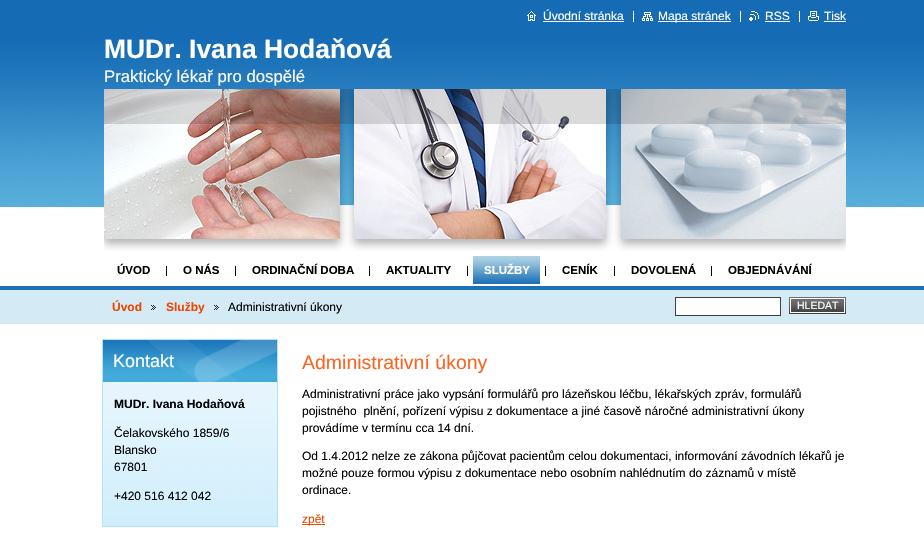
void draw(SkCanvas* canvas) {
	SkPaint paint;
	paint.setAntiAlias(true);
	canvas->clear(0xffffffff);
	paint.setColor(0xff156bb4);
	canvas->drawRect(SkRect::MakeXYWH(0, 0, 924, 34), paint);
	canvas->drawImageRect(SkImages::DeferredFromEncodedData(SkData::MakeFromFileName("img1.png")), SkRect::MakeXYWH(527, 11, 9, 10), SkSamplingOptions());
	SkFont f1(fontMgr->matchFamilyStyle("Liberation Sans", SkFontStyle::Normal()), 12);
	f1.setSubpixel(true);
	paint.setColor(0xffffffff);
	canvas->drawString("Úvodní stránka", 543, 20, f1, paint);
	canvas->drawRect(SkRect::MakeXYWH(543, 21, 81, 1), paint);
	canvas->drawImageRect(SkImages::DeferredFromEncodedData(SkData::MakeFromFileName("img2.png")), SkRect::MakeXYWH(642, 12, 11, 9), SkSamplingOptions());
	canvas->drawRect(SkRect::MakeXYWH(658, 21, 73, 1), paint);
	canvas->drawString("Mapa stránek", 658, 20, f1, paint);
	canvas->drawRect(SkRect::MakeXYWH(633, 11, 1, 11), paint);
	canvas->drawImageRect(SkImages::DeferredFromEncodedData(SkData::MakeFromFileName("img3.png")), SkRect::MakeXYWH(749, 11, 10, 10), SkSamplingOptions());
	canvas->drawString("RSS", 765, 20, f1, paint);
	canvas->drawRect(SkRect::MakeXYWH(740, 11, 1, 11), paint);
	canvas->drawRect(SkRect::MakeXYWH(765, 21, 25, 1), paint);
	canvas->drawImageRect(SkImages::DeferredFromEncodedData(SkData::MakeFromFileName("img4.png")), SkRect::MakeXYWH(808, 11, 11, 10), SkSamplingOptions());
	canvas->drawString("Tisk", 824, 20, f1, paint);
	canvas->drawRect(SkRect::MakeXYWH(799, 11, 1, 11), paint);
	canvas->drawRect(SkRect::MakeXYWH(824, 21, 22, 1), paint);
	canvas->drawImageRect(SkImages::DeferredFromEncodedData(SkData::MakeFromFileName("img5.png")), SkRect::MakeXYWH(0, 34, 924, 220), SkSamplingOptions());
	SkFont f2(fontMgr->matchFamilyStyle("Liberation Sans", SkFontStyle::Bold()), 26.4);
	f2.setSubpixel(true);
	canvas->drawString("MUDr. Ivana Hodaňová", 104, 58, f2, paint);
	SkFont f3(fontMgr->matchFamilyStyle("Liberation Sans", SkFontStyle::Normal()), 16.75);
	f3.setSubpixel(true);
	canvas->drawString("Praktický lékař pro dospělé", 104, 82, f3, paint);
	canvas->drawImageRect(SkImages::DeferredFromEncodedData(SkData::MakeFromFileName("img6.png")), SkRect::MakeXYWH(104, 89, 742, 162), SkSamplingOptions());
	SkFont f4(fontMgr->matchFamilyStyle("Liberation Sans", SkFontStyle::Bold()), 11.5);
	f4.setSubpixel(true);
	paint.setColor(0xff000000);
	canvas->drawString("ÚVOD", 117, 274, f4, paint);
	canvas->drawRect(SkRect::MakeXYWH(166, 266, 1, 10), paint);
	canvas->drawString("O NÁS", 183, 274, f4, paint);
	canvas->drawRect(SkRect::MakeXYWH(235, 266, 1, 10), paint);
	canvas->drawString("ORDINAČNÍ DOBA", 252, 274, f4, paint);
	canvas->drawRect(SkRect::MakeXYWH(369, 266, 1, 10), paint);
	canvas->drawString("AKTUALITY", 386, 274, f4, paint);
	canvas->drawRect(SkRect::MakeXYWH(467, 266, 1, 10), paint);
	paint.setColor(0xff2173b8);
	canvas->drawRect(SkRect::MakeXYWH(473, 282, 67, 2), paint);
	canvas->drawImageRect(SkImages::DeferredFromEncodedData(SkData::MakeFromFileName("img7.png")), SkRect::MakeXYWH(473, 256, 67, 26), SkSamplingOptions());
	paint.setColor(0xffffffff);
	canvas->drawString("SLUŽBY", 484, 274, f4, paint);
	paint.setColor(0xff000000);
	canvas->drawRect(SkRect::MakeXYWH(545, 266, 1, 10), paint);
	canvas->drawString("CENÍK", 562, 274, f4, paint);
	canvas->drawRect(SkRect::MakeXYWH(614, 266, 1, 10), paint);
	canvas->drawString("DOVOLENÁ", 631, 274, f4, paint);
	canvas->drawRect(SkRect::MakeXYWH(711, 266, 1, 10), paint);
	canvas->drawString("OBJEDNÁVÁNÍ", 728, 274, f4, paint);
	paint.setColor(0xffd4eaf5);
	canvas->drawRect(SkRect::MakeXYWH(0, 290, 924, 34), paint);
	paint.setColor(0xff1c70b7);
	canvas->drawRect(SkRect::MakeXYWH(0, 286, 924, 4), paint);
	SkFont f5(fontMgr->matchFamilyStyle("Liberation Sans", SkFontStyle::Bold()), 12);
	f5.setSubpixel(true);
	paint.setColor(0xffec4700);
	canvas->drawString("Úvod", 112, 311, f5, paint);
	canvas->drawImageRect(SkImages::DeferredFromEncodedData(SkData::MakeFromFileName("img8.png")), SkRect::MakeXYWH(151, 305, 5, 5), SkSamplingOptions());
	canvas->drawString("Služby", 166, 311, f5, paint);
	canvas->drawImageRect(SkImages::DeferredFromEncodedData(SkData::MakeFromFileName("img8.png")), SkRect::MakeXYWH(214, 305, 5, 5), SkSamplingOptions());
	paint.setColor(0xff000000);
	canvas->drawString("Administrativní úkony", 228, 311, f1, paint);
	paint.setColor(0xffffffff);
	canvas->drawRect(SkRect::MakeXYWH(675.5, 297.5, 105, 18), paint);
	paint.setStroke(true);
	paint.setStrokeWidth(1);
	paint.setColor(0xff404040);
	canvas->drawRect(SkRect::MakeXYWH(675.5, 297.5, 105, 18), paint);
	paint.setStroke(false);
	canvas->drawRect(SkRect::MakeXYWH(789, 312, 57, 2), paint);
	canvas->drawImageRect(SkImages::DeferredFromEncodedData(SkData::MakeFromFileName("img9.png")), SkRect::MakeXYWH(789, 297, 57, 15), SkSamplingOptions());
	canvas->drawImageRect(SkImages::DeferredFromEncodedData(SkData::MakeFromFileName("img10.png")), SkRect::MakeXYWH(791, 299, 53, 13), SkSamplingOptions());
	paint.setStroke(true);
	paint.setColor(0xffffffff);
	canvas->drawRect(SkRect::MakeXYWH(790.5, 298.5, 54, 14), paint);
	SkFont f6(fontMgr->matchFamilyStyle("Liberation Sans", SkFontStyle::Normal()), 10.5);
	f6.setSubpixel(true);
	paint.setStroke(false);
	canvas->drawString("HLEDAT", 797, 309, f6, paint);
	canvas->drawImageRect(SkImages::DeferredFromEncodedData(SkData::MakeFromFileName("img11.png")), SkRect::MakeXYWH(103, 382, 174, 144), SkSamplingOptions());
	paint.setStroke(true);
	paint.setColor(0xffb1e4fb);
	canvas->drawRect(SkRect::MakeXYWH(102.5, 339.5, 175, 187), paint);
	canvas->drawImageRect(SkImages::DeferredFromEncodedData(SkData::MakeFromFileName("img12.png")), SkRect::MakeXYWH(103, 340, 174, 42), SkSamplingOptions());
	SkFont f7(fontMgr->matchFamilyStyle("Liberation Sans", SkFontStyle::Normal()), 18);
	f7.setSubpixel(true);
	paint.setStroke(false);
	paint.setColor(0xffffffff);
	canvas->drawString("Kontakt", 113, 367, f7, paint);
	paint.setColor(0xff000000);
	canvas->drawString("MUDr. Ivana Hodaňová", 114, 408, f5, paint);
	canvas->drawString("Čelakovského 1859/6", 114, 437, f1, paint);
	canvas->drawString("Blansko", 114, 454, f1, paint);
	canvas->drawString("67801", 114, 471, f1, paint);
	canvas->drawString("+420 516 412 042", 114, 500, f1, paint);
	SkFont f8(fontMgr->matchFamilyStyle("Liberation Sans", SkFontStyle::Normal()), 19.5);
	f8.setSubpixel(true);
	paint.setColor(0xfffd6422);
	canvas->drawString("Administrativní úkony", 302, 369, f8, paint);
	paint.setColor(0xff000000);
	canvas->drawString("Administrativní práce jako vypsání formulářů pro lázeňskou léčbu, lékařských zpráv, formulářů", 302, 398, f1, paint);
	canvas->drawString("pojistného  plnění, pořízení výpisu z dokumentace a jiné časově náročné administrativní úkony", 302, 415, f1, paint);
	canvas->drawString("provádíme v termínu cca 14 dní.", 302, 432, f1, paint);
	canvas->drawString("Od 1.4.2012 nelze ze zákona půjčovat pacientům celou dokumentaci, informování závodních lékařů je", 302, 460, f1, paint);
	canvas->drawString("možné pouze formou výpisu z dokumentace nebo osobním nahlédnutím do záznamů v místě", 302, 477, f1, paint);
	canvas->drawString("ordinace.", 302, 494, f1, paint);
	paint.setColor(0xffec4700);
	canvas->drawRect(SkRect::MakeXYWH(302, 524, 23, 1), paint);
	canvas->drawString("zpět", 302, 523, f1, paint);
}
